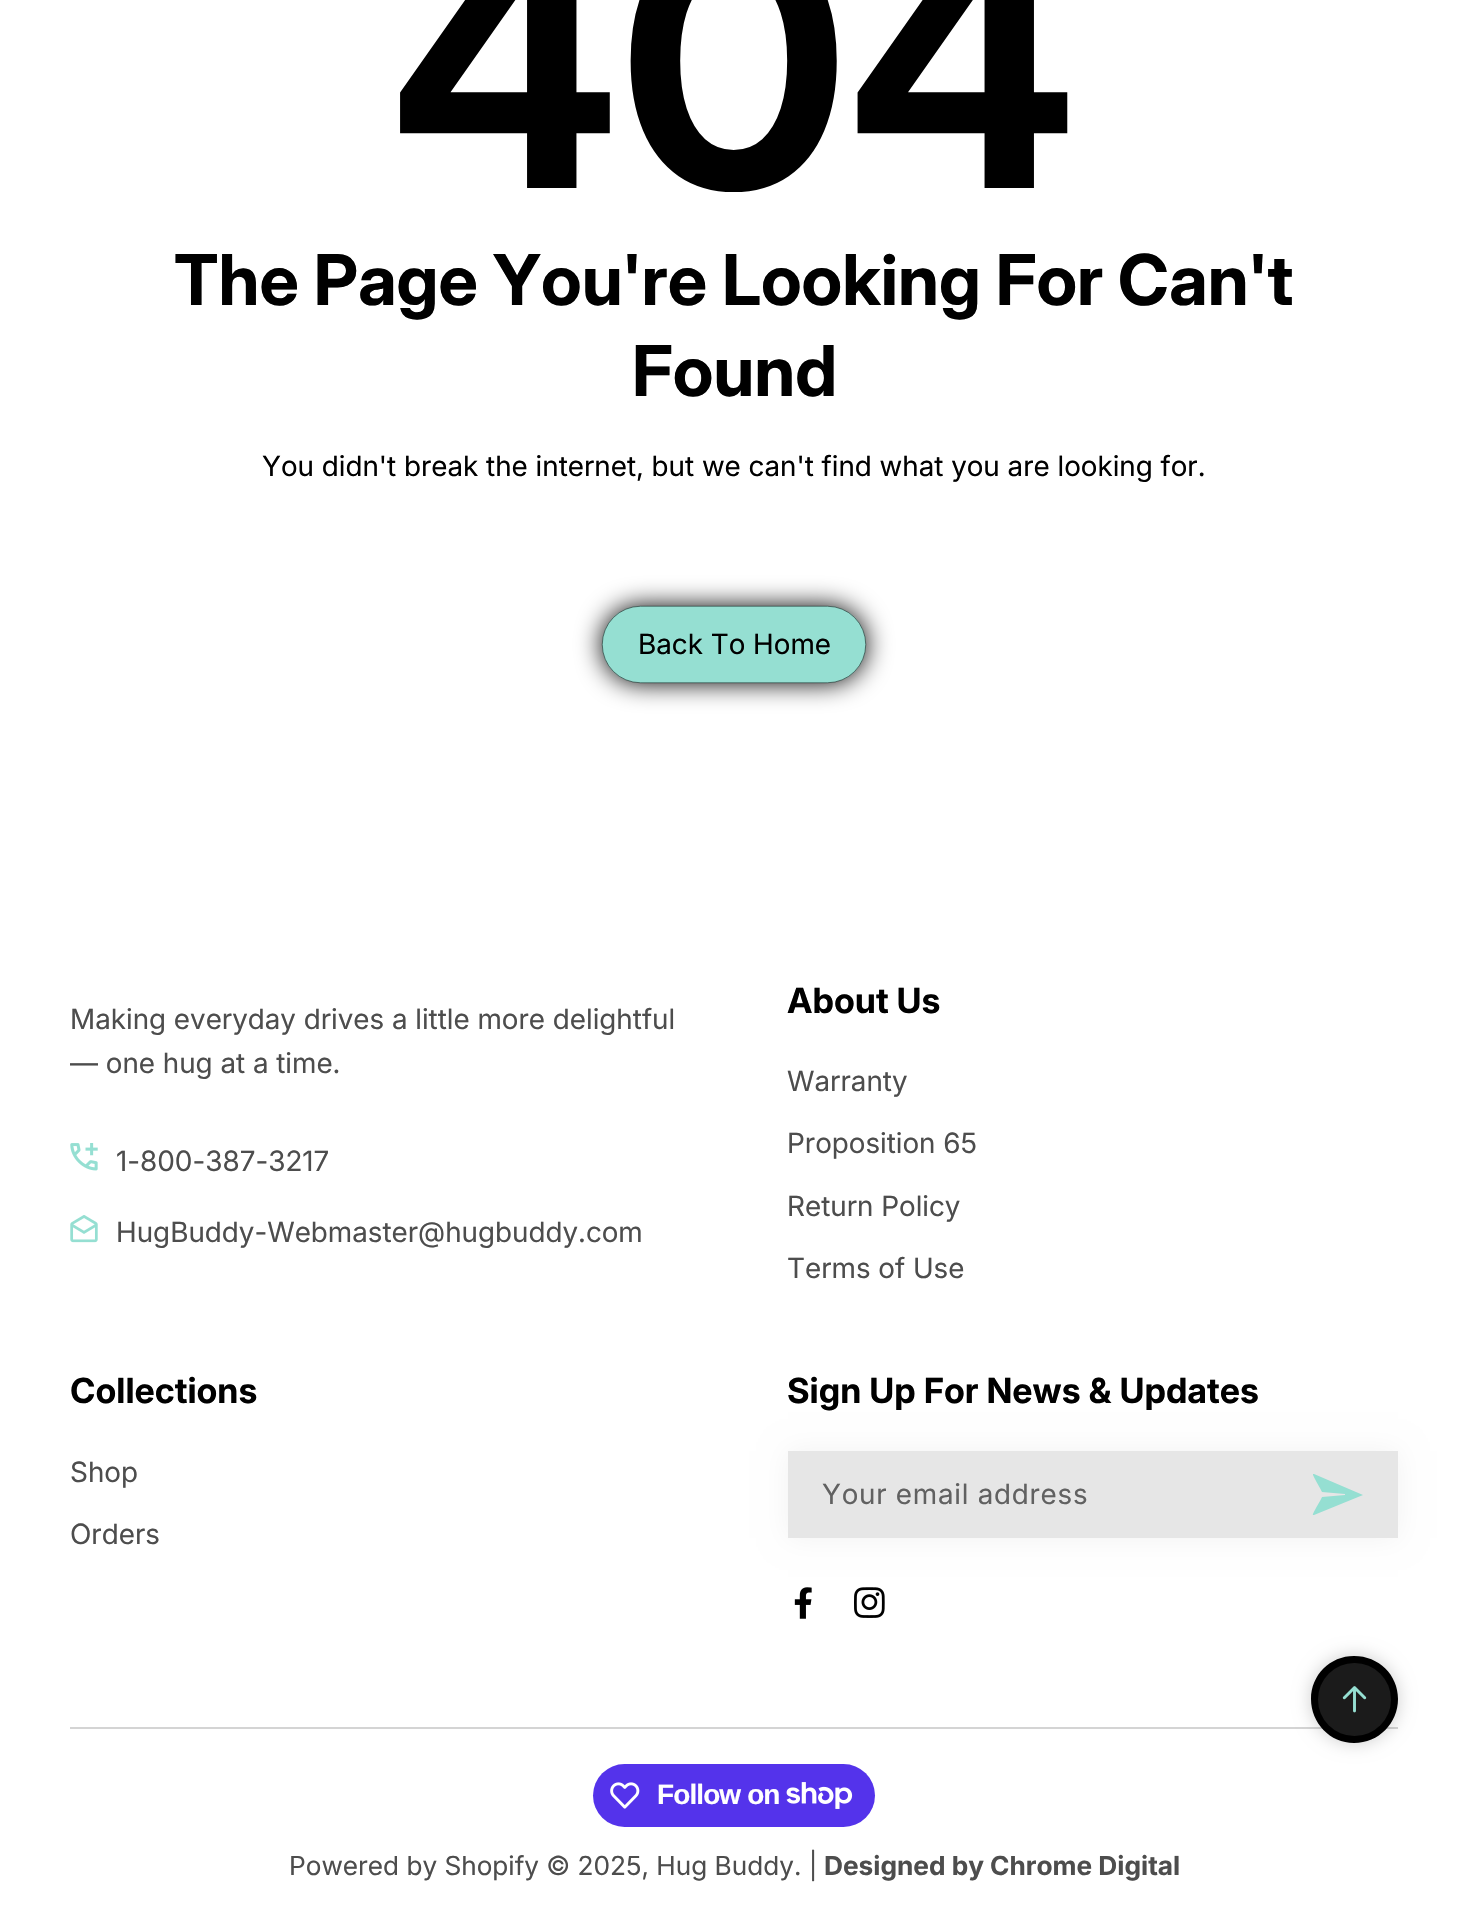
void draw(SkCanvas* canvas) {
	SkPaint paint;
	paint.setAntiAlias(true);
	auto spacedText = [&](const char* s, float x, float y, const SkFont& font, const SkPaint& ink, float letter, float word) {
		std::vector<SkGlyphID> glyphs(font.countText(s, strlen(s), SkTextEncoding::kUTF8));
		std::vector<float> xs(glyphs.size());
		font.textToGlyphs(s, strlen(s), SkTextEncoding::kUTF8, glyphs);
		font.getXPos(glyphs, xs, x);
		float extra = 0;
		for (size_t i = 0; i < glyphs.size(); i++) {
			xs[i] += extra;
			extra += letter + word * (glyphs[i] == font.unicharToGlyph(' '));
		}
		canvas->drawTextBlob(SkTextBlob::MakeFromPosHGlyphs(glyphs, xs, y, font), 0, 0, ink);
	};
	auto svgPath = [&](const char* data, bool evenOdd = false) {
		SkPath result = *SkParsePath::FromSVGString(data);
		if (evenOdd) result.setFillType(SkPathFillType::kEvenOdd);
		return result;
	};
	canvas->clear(0xffffffff);
	SkFont f1(fontMgr->matchFamilyStyle("Inter", SkFontStyle::Bold()), 350);
	f1.setSubpixel(true);
	paint.setColor(0xff000000);
	canvas->drawString("404", 390, 188, f1, paint);
	SkFont f2(fontMgr->matchFamilyStyle("Inter", SkFontStyle::Bold()), 70);
	f2.setSubpixel(true);
	canvas->drawString("The Page You're Looking For Can't", 174, 305, f2, paint);
	canvas->drawString("Found", 632, 396, f2, paint);
	SkFont f3(fontMgr->matchFamilyStyle("Inter", SkFontStyle::Normal()), 28);
	f3.setSubpixel(true);
	canvas->drawString("You didn't break the internet, but we can't find what you are looking for.", 262, 476, f3, paint);
	paint.setMaskFilter(SkMaskFilter::MakeBlur(kNormal_SkBlurStyle, 13));
	canvas->drawRoundRect(SkRect::MakeXYWH(602, 606, 264, 77), 38.5, 38.5, paint);
	paint.setMaskFilter(nullptr);
	paint.setColor(0xff95dfd2);
	canvas->drawRoundRect(SkRect::MakeXYWH(602, 606, 264, 77), 38.5, 38.5, paint);
	paint.setStroke(true);
	paint.setStrokeWidth(0.5);
	paint.setColor(0xff000000);
	canvas->drawRoundRect(SkRect::MakeXYWH(602.25, 606.25, 263.5, 76.5), 38.25, 38.25, paint);
	paint.setStroke(false);
	canvas->drawString("Back To Home", 638, 654, f3, paint);
	paint.setColor(0xff4d4d4d);
	canvas->drawString("Making everyday drives a little more delightful", 70, 1029, f3, paint);
	canvas->drawString("— one hug at a time.", 70, 1073, f3, paint);
	canvas->drawImageRect(SkImages::DeferredFromEncodedData(SkData::MakeFromFileName("img1.png")), SkRect::MakeXYWH(70, 1143, 28, 28), SkSamplingOptions());
	canvas->drawString("1-800-387-3217", 116, 1171, f3, paint);
	canvas->drawImageRect(SkImages::DeferredFromEncodedData(SkData::MakeFromFileName("img2.png")), SkRect::MakeXYWH(70, 1215, 28, 28), SkSamplingOptions());
	canvas->drawString("HugBuddy-Webmaster@hugbuddy.com", 116, 1242, f3, paint);
	SkFont f4(fontMgr->matchFamilyStyle("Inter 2", SkFontStyle::Bold()), 34.6);
	f4.setSubpixel(true);
	paint.setColor(0xff000000);
	canvas->drawString("About Us", 787, 1013, f4, paint);
	paint.setColor(0xff4d4d4d);
	canvas->drawString("Warranty", 787, 1091, f3, paint);
	canvas->drawString("Proposition 65", 787, 1153, f3, paint);
	canvas->drawString("Return Policy", 787, 1216, f3, paint);
	canvas->drawString("Terms of Use", 787, 1278, f3, paint);
	paint.setColor(0xff000000);
	canvas->drawString("Collections", 70, 1403, f4, paint);
	paint.setColor(0xff4d4d4d);
	canvas->drawString("Shop", 70, 1482, f3, paint);
	canvas->drawString("Orders", 70, 1544, f3, paint);
	paint.setColor(0xff000000);
	canvas->drawString("Sign Up For News & Updates", 787, 1403, f4, paint);
	paint.setColor(0x0d000000);
	paint.setMaskFilter(SkMaskFilter::MakeBlur(kNormal_SkBlurStyle, 13));
	canvas->drawRect(SkRect::MakeXYWH(788, 1451, 610, 87), paint);
	paint.setMaskFilter(nullptr);
	paint.setColor(0xffe6e6e6);
	canvas->drawRect(SkRect::MakeXYWH(788, 1451, 610, 87), paint);
	paint.setColor(0xff616161);
	spacedText("Your email address", 822, 1504, f3, paint, 0.75, 0);
	paint.setColor(0xff95dfd2);
	canvas->drawPath(svgPath("M1322 1492C1321 1489 1312 1475 1313 1474H1314L1363 1495L1314 1515H1313C1312 1514 1321 1500 1322 1497L1345 1495V1494Z", true), paint);
	canvas->drawImageRect(SkImages::DeferredFromEncodedData(SkData::MakeFromFileName("img3.png")), SkRect::MakeXYWH(794, 1587, 18, 32), SkSamplingOptions());
	canvas->drawImageRect(SkImages::DeferredFromEncodedData(SkData::MakeFromFileName("img4.png")), SkRect::MakeXYWH(854, 1587, 31, 31), SkSamplingOptions());
	paint.setColor(0xffd4d4d4);
	canvas->drawRect(SkRect::MakeXYWH(70, 1727, 1328, 2), paint);
	paint.setColor(0xff5433eb);
	canvas->drawRoundRect(SkRect::MakeXYWH(593, 1764, 282, 63), 31.5, 31.5, paint);
	canvas->drawImageRect(SkImages::DeferredFromEncodedData(SkData::MakeFromFileName("img5.png")), SkRect::MakeXYWH(610, 1782, 30, 27), SkSamplingOptions());
	SkFont f5(fontMgr->matchFamilyStyle("Liberation Sans", SkFontStyle::Bold()), 28);
	f5.setSubpixel(true);
	paint.setColor(0xffffffff);
	spacedText("Follow on", 657, 1804, f5, paint, -0.9, 0);
	canvas->drawImageRect(SkImages::DeferredFromEncodedData(SkData::MakeFromFileName("img6.png")), SkRect::MakeXYWH(786, 1782, 67, 27), SkSamplingOptions());
	SkFont f6(fontMgr->matchFamilyStyle("Inter 2", SkFontStyle::Normal()), 26.25);
	f6.setSubpixel(true);
	paint.setColor(0xff4d4d4d);
	canvas->drawString("Powered by Shopify © 2025, Hug Buddy. |", 289, 1875, f6, paint);
	SkFont f7(fontMgr->matchFamilyStyle("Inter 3", SkFontStyle::Bold()), 26.25);
	f7.setSubpixel(true);
	canvas->drawString("Designed by", 824, 1875, f7, paint);
	canvas->drawString("Chrome Digital", 990, 1875, f7, paint);
	paint.setColor(0x33000000);
	paint.setMaskFilter(SkMaskFilter::MakeBlur(kNormal_SkBlurStyle, 9));
	canvas->drawRoundRect(SkRect::MakeXYWH(1311, 1656, 87, 87), 43.5, 43.5, paint);
	paint.setMaskFilter(nullptr);
	paint.setColor(0xff000000);
	canvas->drawPath(svgPath("M1354 1699V1656C1379 1656 1398 1675 1398 1699C1398 1723 1379 1743 1354 1743C1330 1743 1311 1723 1311 1699C1311 1675 1330 1656 1354 1656Z"), paint);
	paint.setColor(0xff1b1b1b);
	canvas->drawCircle(1354.5, 1699.5, 36.5, paint);
	canvas->drawImageRect(SkImages::DeferredFromEncodedData(SkData::MakeFromFileName("img7.png")), SkRect::MakeXYWH(1342, 1686, 25, 27), SkSamplingOptions());
}
